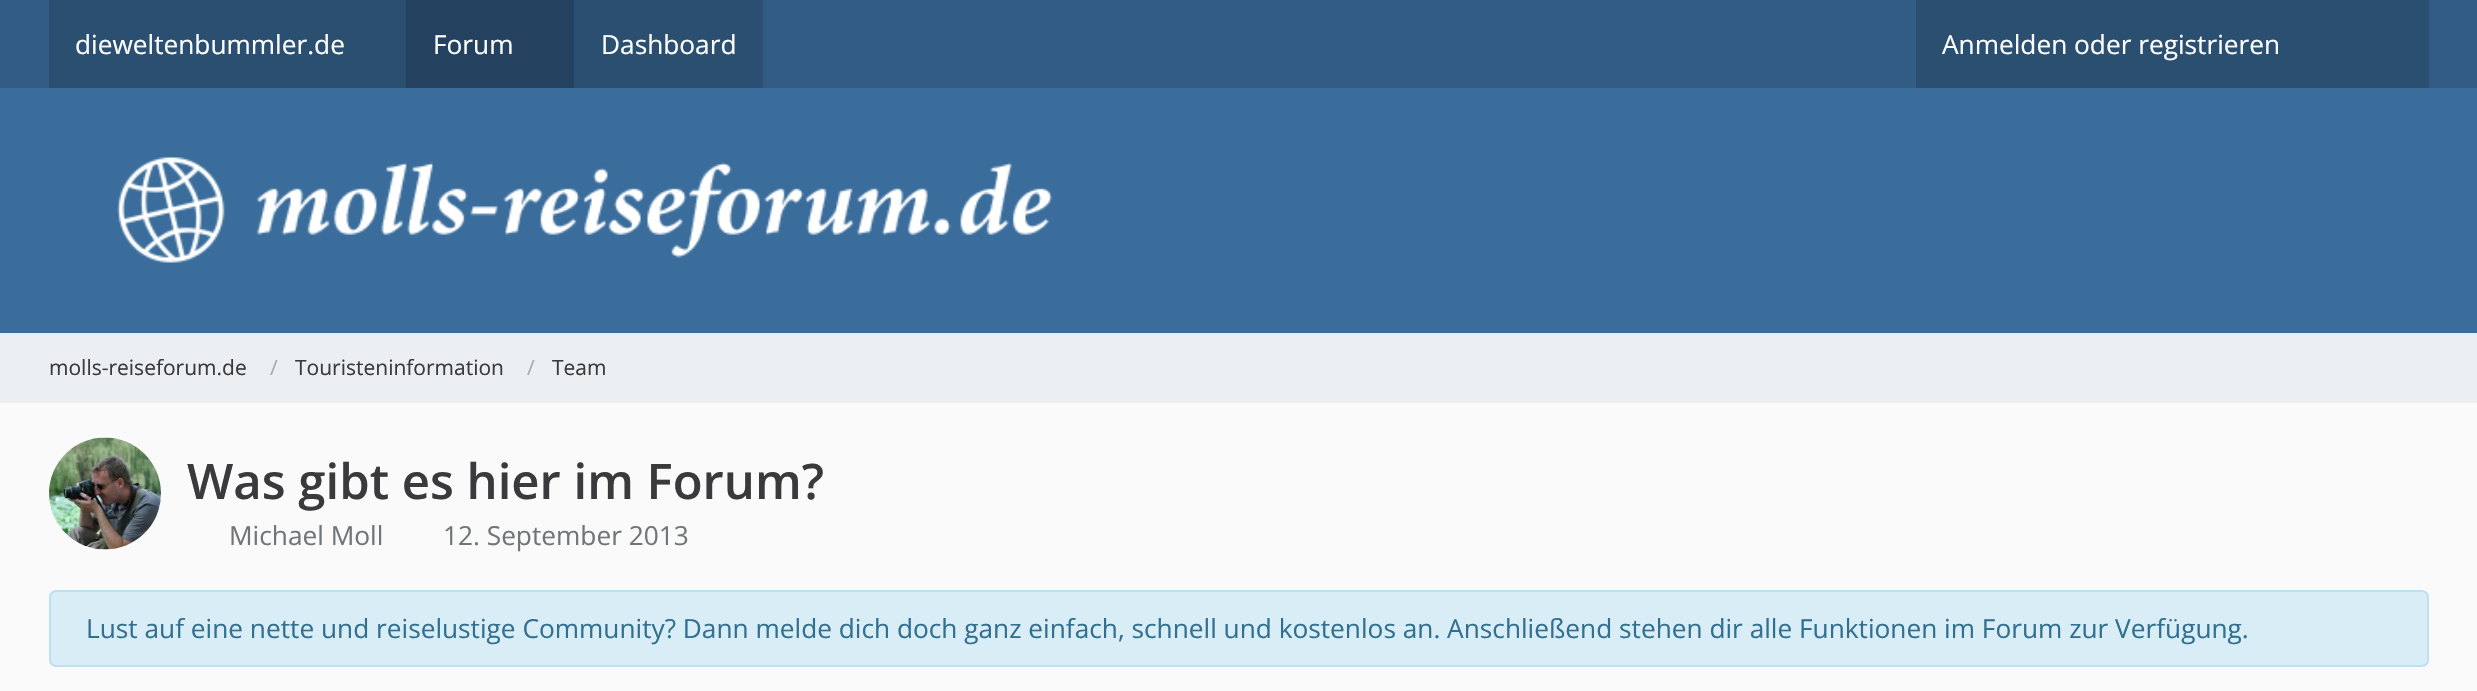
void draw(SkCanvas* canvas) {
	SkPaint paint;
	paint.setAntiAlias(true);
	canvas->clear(0xfffafafa);
	paint.setColor(0xff3a6d9c);
	canvas->drawRect(SkRect::MakeXYWH(0, 88, 2477, 245), paint);
	paint.setColor(0xff325c84);
	canvas->drawRect(SkRect::MakeXYWH(0, 0, 2477, 88), paint);
	paint.setColor(0xff2b4f71);
	canvas->drawRect(SkRect::MakeXYWH(49, 0, 357, 88), paint);
	SkFont f1(fontMgr->matchFamilyStyle("Open Sans", SkFontStyle::Normal()), 26.25);
	f1.setSubpixel(true);
	paint.setColor(0xffffffff);
	canvas->drawString("dieweltenbummler.de", 75, 54, f1, paint);
	paint.setColor(0xff24425f);
	canvas->drawRect(SkRect::MakeXYWH(406, 0, 168, 88), paint);
	paint.setColor(0xffffffff);
	canvas->drawString("Forum", 433, 54, f1, paint);
	paint.setColor(0xff2b4f71);
	canvas->drawRect(SkRect::MakeXYWH(574, 0, 189, 88), paint);
	paint.setColor(0xffffffff);
	canvas->drawString("Dashboard", 601, 54, f1, paint);
	paint.setColor(0xff2b4f71);
	canvas->drawRect(SkRect::MakeXYWH(1916, 0, 513, 88), paint);
	paint.setColor(0xffffffff);
	canvas->drawString("Anmelden oder registrieren", 1942, 54, f1, paint);
	canvas->drawImageRect(SkImages::DeferredFromEncodedData(SkData::MakeFromFileName("img1.png")), SkRect::MakeXYWH(117, 157, 936, 106), SkSamplingOptions());
	paint.setColor(0xffeceff1);
	canvas->drawRect(SkRect::MakeXYWH(0, 333, 2477, 70), paint);
	SkFont f2(fontMgr->matchFamilyStyle("Open Sans", SkFontStyle::Normal()), 21);
	f2.setSubpixel(true);
	paint.setColor(0xff3a3a3d);
	canvas->drawString("molls-reiseforum.de", 49, 375, f2, paint);
	paint.setColor(0xffaaaaaa);
	canvas->drawString("/", 270, 375, f2, paint);
	paint.setColor(0xff3a3a3d);
	canvas->drawString("Touristeninformation", 295, 375, f2, paint);
	paint.setColor(0xffaaaaaa);
	canvas->drawString("/", 527, 375, f2, paint);
	paint.setColor(0xff3a3a3d);
	canvas->drawString("Team", 552, 375, f2, paint);
	paint.setColor(0xffffffff);
	canvas->drawCircle(105, 494, 56, paint);
	canvas->drawImageRect(SkImages::DeferredFromEncodedData(SkData::MakeFromFileName("img2.png")), SkRect::MakeXYWH(49, 437, 112, 113), SkSamplingOptions());
	SkFont f3(fontMgr->matchFamilyStyle("Open Sans", SkFontStyle(600, SkFontStyle::kNormal_Width, SkFontStyle::kUpright_Slant)), 49);
	f3.setSubpixel(true);
	paint.setColor(0xff3a3a3d);
	canvas->drawString("Was gibt es hier im Forum?", 187, 499, f3, paint);
	paint.setColor(0xff71757a);
	canvas->drawString("Michael Moll", 229, 545, f1, paint);
	canvas->drawString("12. September 2013", 443, 545, f1, paint);
	paint.setColor(0xffd9edf7);
	canvas->drawRoundRect(SkRect::MakeXYWH(50, 591, 2378, 75), 6, 6, paint);
	paint.setStroke(true);
	paint.setStrokeWidth(2);
	paint.setColor(0xffbcdff1);
	canvas->drawRoundRect(SkRect::MakeXYWH(50, 591, 2378, 75), 6, 6, paint);
	paint.setStroke(false);
	paint.setColor(0xff31708f);
	canvas->drawString("Lust auf eine nette und reiselustige Community? Dann melde dich doch ganz einfach, schnell und kostenlos an. Anschließend stehen dir alle Funktionen im Forum zur Verfügung.", 86, 638, f1, paint);
}
